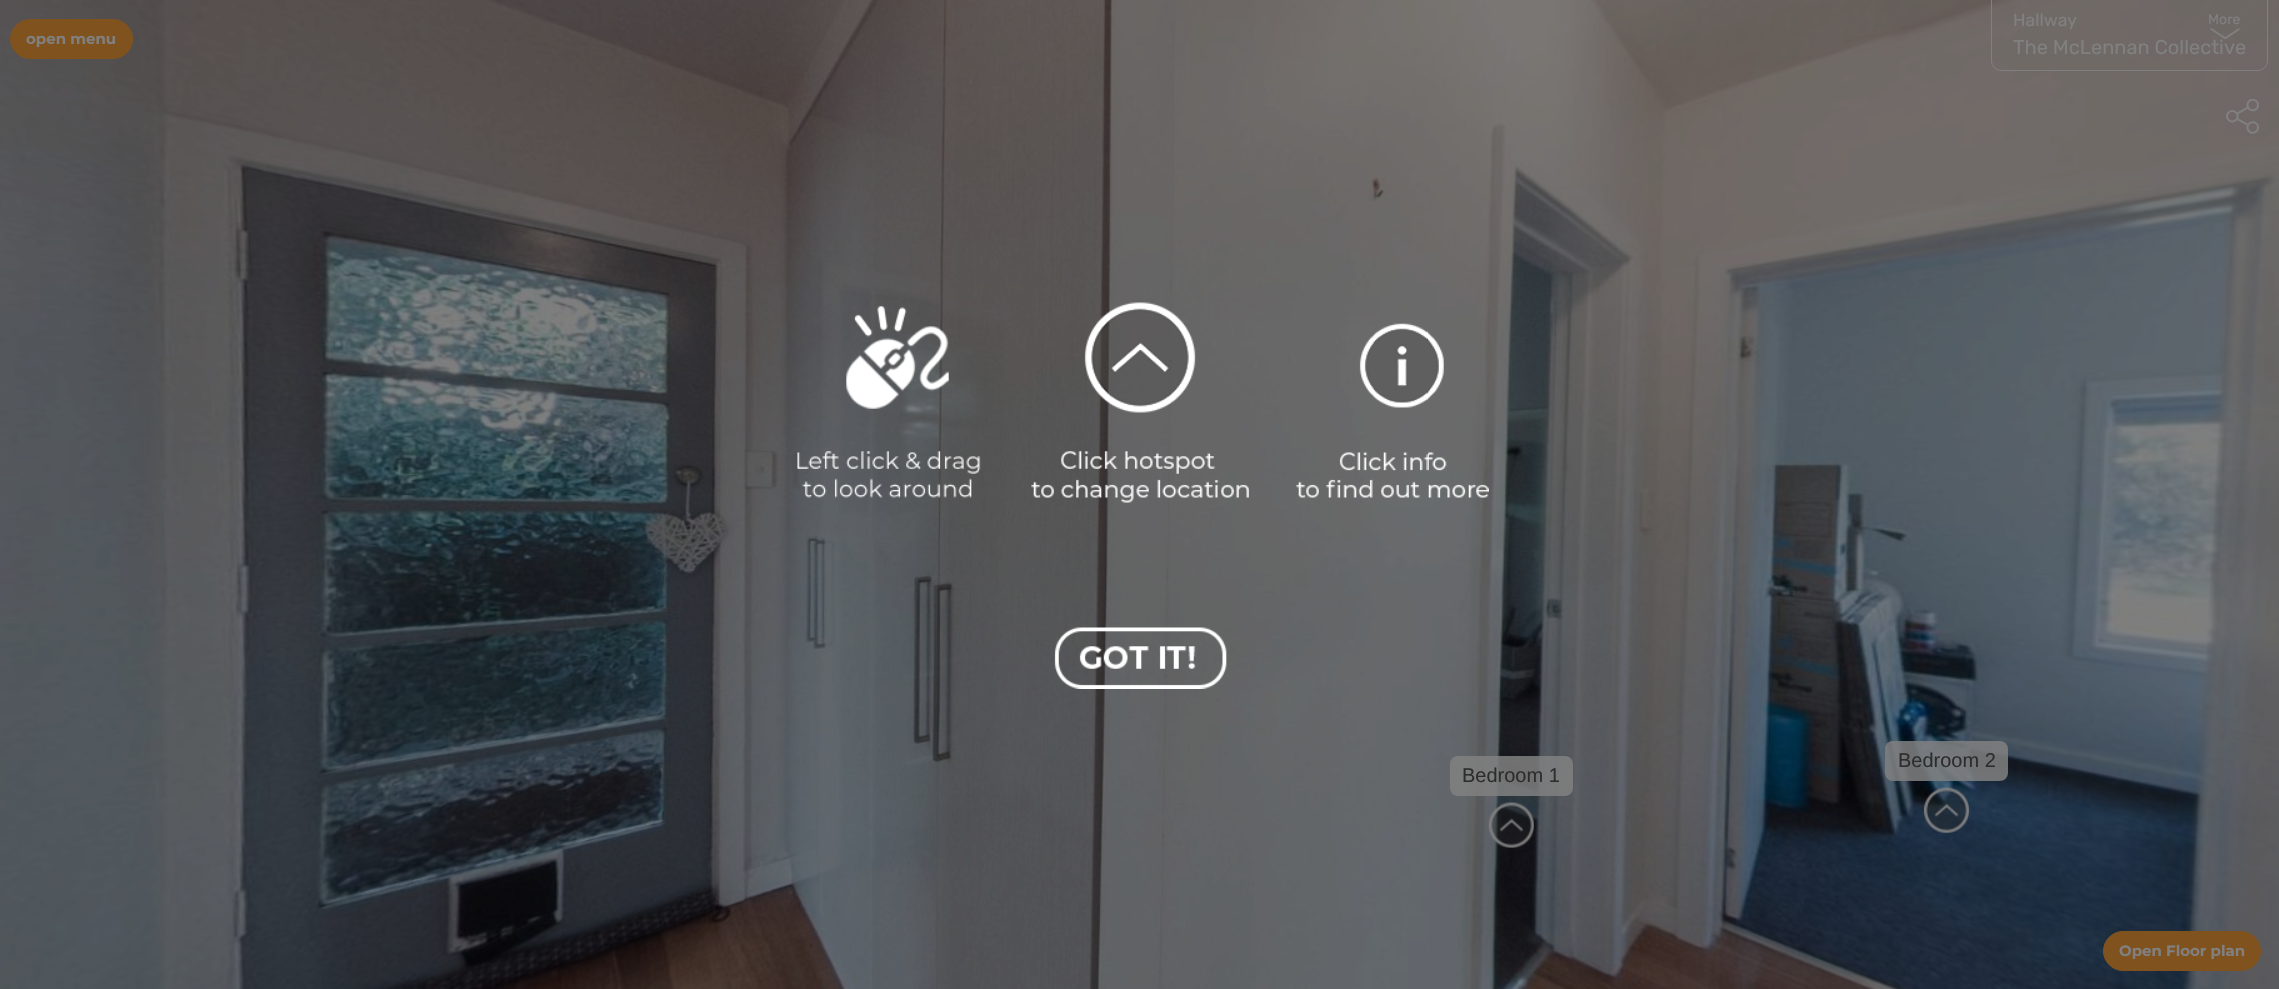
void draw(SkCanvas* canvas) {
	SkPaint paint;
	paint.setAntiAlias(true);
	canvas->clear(0xffffffff);
	canvas->drawImageRect(SkImages::DeferredFromEncodedData(SkData::MakeFromFileName("img3.png")), SkRect::MakeXYWH(0, 0, 2279, 989), SkSamplingOptions());
	paint.setColor(0xff7f521e);
	canvas->drawRoundRect(SkRect::MakeXYWH(10.5, 19.5, 122, 39), 19.5, 19.5, paint);
	paint.setStroke(true);
	paint.setStrokeWidth(1);
	canvas->drawRoundRect(SkRect::MakeXYWH(10.5, 19.5, 122, 39), 19.5, 19.5, paint);
	SkFont f1(fontMgr->matchFamilyStyle("Montserrat", SkFontStyle::Bold()), 15);
	f1.setSubpixel(true);
	paint.setStroke(false);
	paint.setColor(0xff808080);
	canvas->drawString("open menu", 26, 44, f1, paint);
	paint.setStroke(true);
	canvas->drawRoundRect(SkRect::MakeXYWH(1991.5, -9.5, 276, 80), 9.5, 9.5, paint);
	SkFont f2(fontMgr->matchFamilyStyle("Rubik", SkFontStyle::Normal()), 17.5);
	f2.setSubpixel(true);
	paint.setStroke(false);
	canvas->drawString("Hallway", 2013, 26, f2, paint);
	SkFont f3(fontMgr->matchFamilyStyle("Rubik", SkFontStyle::Normal()), 14);
	f3.setSubpixel(true);
	canvas->drawString("More", 2208, 24, f3, paint);
	canvas->drawImageRect(SkImages::DeferredFromEncodedData(SkData::MakeFromFileName("img1.png")), SkRect::MakeXYWH(2210, 28, 30, 11), SkSamplingOptions());
	SkFont f4(fontMgr->matchFamilyStyle("Rubik", SkFontStyle::Normal()), 20);
	f4.setSubpixel(true);
	canvas->drawString("The McLennan Collective", 2013, 54, f4, paint);
	canvas->drawImageRect(SkImages::DeferredFromEncodedData(SkData::MakeFromFileName("img2.png")), SkRect::MakeXYWH(2226, 99, 33, 35), SkSamplingOptions());
	canvas->drawImageRect(SkImages::DeferredFromEncodedData(SkData::MakeFromFileName("img4.png")), SkRect::MakeXYWH(1923, 787, 46, 46), SkSamplingOptions());
	paint.setColor(0xd9808080);
	canvas->drawRoundRect(SkRect::MakeXYWH(1885, 741, 123, 40), 8, 8, paint);
	SkFont f5(fontMgr->matchFamilyStyle("Liberation Sans", SkFontStyle::Normal()), 20);
	f5.setSubpixel(true);
	paint.setColor(0xff2d2d2d);
	canvas->drawString("Bedroom 2", 1898, 767, f5, paint);
	canvas->drawImageRect(SkImages::DeferredFromEncodedData(SkData::MakeFromFileName("img5.png")), SkRect::MakeXYWH(1488, 802, 46, 46), SkSamplingOptions());
	paint.setColor(0xd9808080);
	canvas->drawRoundRect(SkRect::MakeXYWH(1450, 756, 123, 40), 8, 8, paint);
	paint.setColor(0xff2d2d2d);
	canvas->drawString("Bedroom 1", 1462, 782, f5, paint);
	paint.setColor(0xff7f521e);
	canvas->drawRoundRect(SkRect::MakeXYWH(2103.5, 931.5, 157, 39), 19.5, 19.5, paint);
	paint.setStroke(true);
	canvas->drawRoundRect(SkRect::MakeXYWH(2103.5, 931.5, 157, 39), 19.5, 19.5, paint);
	paint.setStroke(false);
	paint.setColor(0xff808080);
	canvas->drawString("Open Floor plan", 2119, 956, f1, paint);
	canvas->drawImageRect(SkImages::DeferredFromEncodedData(SkData::MakeFromFileName("img6.png")), SkRect::MakeXYWH(797, 302, 692, 387), SkSamplingOptions());
}
